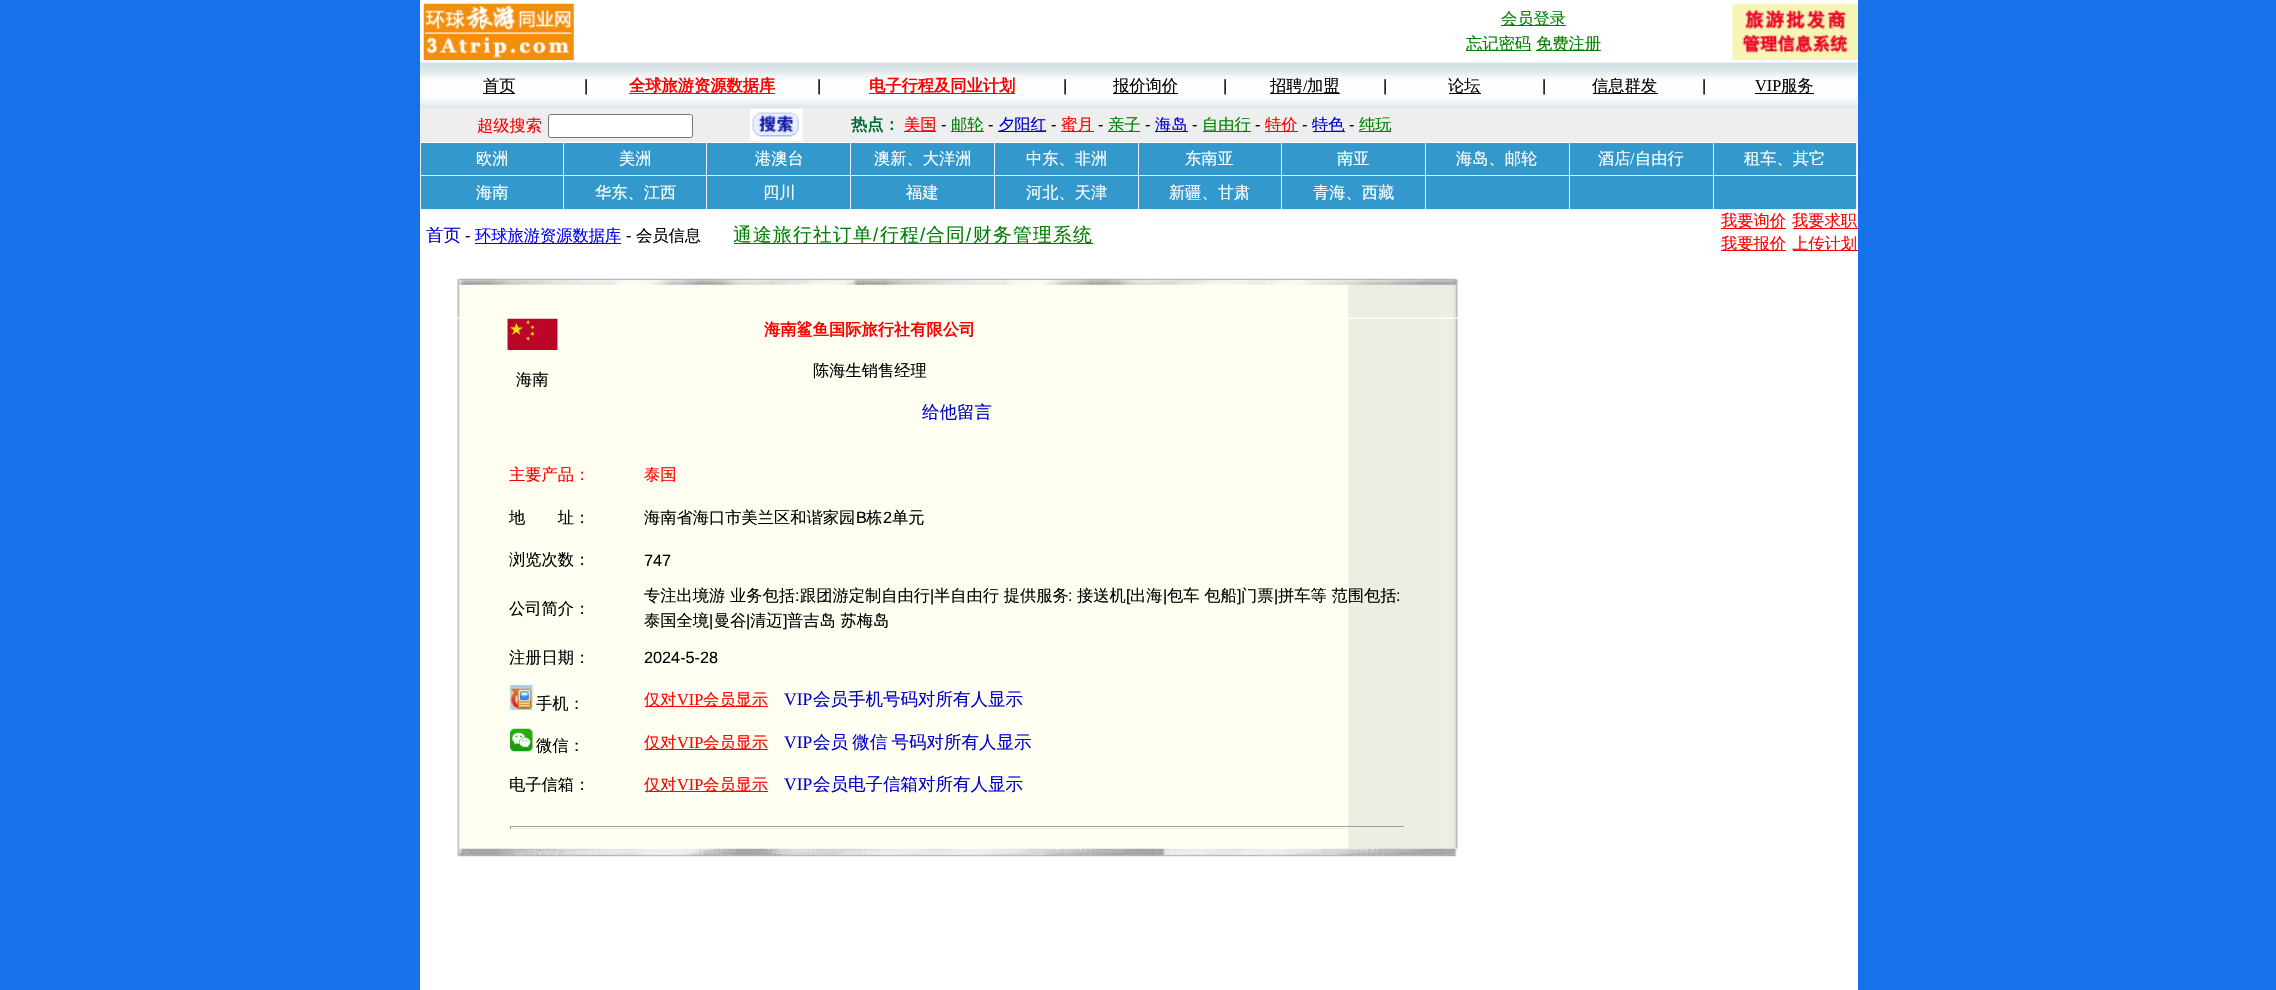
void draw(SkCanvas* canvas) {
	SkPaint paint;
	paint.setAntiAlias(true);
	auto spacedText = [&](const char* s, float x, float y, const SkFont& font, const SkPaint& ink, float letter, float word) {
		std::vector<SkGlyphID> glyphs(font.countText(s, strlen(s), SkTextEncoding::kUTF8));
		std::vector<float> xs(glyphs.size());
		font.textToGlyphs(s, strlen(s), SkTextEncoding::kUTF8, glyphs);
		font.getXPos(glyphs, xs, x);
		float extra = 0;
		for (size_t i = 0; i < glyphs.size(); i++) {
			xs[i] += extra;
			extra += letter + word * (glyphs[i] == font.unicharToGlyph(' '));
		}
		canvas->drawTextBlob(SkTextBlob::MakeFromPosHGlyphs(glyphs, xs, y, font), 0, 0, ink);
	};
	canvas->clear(0xff1771e9);
	paint.setColor(0xffffffff);
	canvas->drawRect(SkRect::MakeXYWH(420, 0, 1438, 990), paint);
	canvas->drawImageRect(SkImages::DeferredFromEncodedData(SkData::MakeFromFileName("img1.png")), SkRect::MakeXYWH(423, 3, 151, 57), SkSamplingOptions());
	paint.setColor(0xff008000);
	canvas->drawRect(SkRect::MakeXYWH(1501, 25, 65, 1), paint);
	SkFont f1(fontMgr->matchFamilyStyle("WenQuanYi Zen Hei", SkFontStyle(500, SkFontStyle::kNormal_Width, SkFontStyle::kUpright_Slant)), 16.25);
	f1.setSubpixel(true);
	canvas->drawString("会员登录", 1501, 24, f1, paint);
	canvas->drawRect(SkRect::MakeXYWH(1466, 50, 65, 1), paint);
	canvas->drawString("忘记密码", 1466, 49, f1, paint);
	canvas->drawRect(SkRect::MakeXYWH(1536, 50, 65, 1), paint);
	canvas->drawString("免费注册", 1536, 49, f1, paint);
	canvas->drawImageRect(SkImages::DeferredFromEncodedData(SkData::MakeFromFileName("img2.png")), SkRect::MakeXYWH(1732, 3, 126, 57), SkSamplingOptions());
	canvas->drawImageRect(SkImages::DeferredFromEncodedData(SkData::MakeFromFileName("img3.png")), SkRect::MakeXYWH(420, 62, 1438, 47), SkSamplingOptions());
	paint.setColor(0xff000000);
	canvas->drawRect(SkRect::MakeXYWH(483, 93, 32, 1), paint);
	canvas->drawString("首页", 483, 91, f1, paint);
	SkFont f2(fontMgr->matchFamilyStyle("Liberation Sans", SkFontStyle::Normal()), 16.25);
	f2.setSubpixel(true);
	canvas->drawString("|", 584, 91, f2, paint);
	paint.setColor(0xffff0000);
	canvas->drawRect(SkRect::MakeXYWH(629, 93, 146, 1), paint);
	SkFont f3(fontMgr->matchFamilyStyle("WenQuanYi Zen Hei", SkFontStyle::Bold()), 16.25);
	f3.setSubpixel(true);
	canvas->drawString("全球旅游资源数据库", 629, 91, f3, paint);
	paint.setColor(0xff000000);
	canvas->drawString("|", 817, 91, f2, paint);
	paint.setColor(0xffff0000);
	canvas->drawRect(SkRect::MakeXYWH(869, 93, 146, 1), paint);
	canvas->drawString("电子行程及同业计划", 869, 91, f3, paint);
	paint.setColor(0xff000000);
	canvas->drawString("|", 1063, 91, f2, paint);
	canvas->drawRect(SkRect::MakeXYWH(1113, 93, 65, 1), paint);
	canvas->drawString("报价询价", 1113, 91, f1, paint);
	canvas->drawString("|", 1223, 91, f2, paint);
	canvas->drawRect(SkRect::MakeXYWH(1270, 93, 70, 1), paint);
	canvas->drawString("招聘", 1270, 91, f1, paint);
	SkFont f4(fontMgr->matchFamilyStyle("Liberation Serif", SkFontStyle::Normal()), 16.25);
	f4.setSubpixel(true);
	canvas->drawString("/", 1303, 91, f4, paint);
	canvas->drawString("加盟", 1307, 91, f1, paint);
	canvas->drawString("|", 1383, 91, f2, paint);
	canvas->drawRect(SkRect::MakeXYWH(1449, 93, 32, 1), paint);
	canvas->drawString("论坛", 1448, 91, f1, paint);
	canvas->drawString("|", 1542, 91, f2, paint);
	canvas->drawRect(SkRect::MakeXYWH(1593, 93, 65, 1), paint);
	canvas->drawString("信息群发", 1592, 91, f1, paint);
	canvas->drawString("|", 1702, 91, f2, paint);
	canvas->drawString("VIP", 1755, 91, f4, paint);
	canvas->drawRect(SkRect::MakeXYWH(1755, 93, 59, 1), paint);
	canvas->drawString("服务", 1781, 91, f1, paint);
	paint.setColor(0xffeeeeee);
	canvas->drawRect(SkRect::MakeXYWH(420, 109, 1438, 32), paint);
	paint.setColor(0xffff0000);
	canvas->drawString("超级搜索", 477, 131, f1, paint);
	paint.setColor(0xffffffff);
	canvas->drawRoundRect(SkRect::MakeXYWH(548.5, 114.5, 144, 23), 2, 2, paint);
	paint.setStroke(true);
	paint.setStrokeWidth(1);
	paint.setColor(0xff767676);
	canvas->drawRoundRect(SkRect::MakeXYWH(548.5, 114.5, 144, 23), 2, 2, paint);
	paint.setStroke(false);
	paint.setColor(0xffeeeeee);
	canvas->drawRect(SkRect::MakeXYWH(1713, 141, 145, 1), paint);
	canvas->drawRect(SkRect::MakeXYWH(1713, 175, 145, 1), paint);
	canvas->drawRect(SkRect::MakeXYWH(1856, 175, 1, 35), paint);
	canvas->drawRect(SkRect::MakeXYWH(1713, 209, 145, 1), paint);
	canvas->drawRect(SkRect::MakeXYWH(1713, 175, 1, 35), paint);
	canvas->drawRect(SkRect::MakeXYWH(1569, 175, 145, 1), paint);
	canvas->drawRect(SkRect::MakeXYWH(1713, 141, 1, 35), paint);
	canvas->drawRect(SkRect::MakeXYWH(1569, 141, 145, 1), paint);
	canvas->drawRect(SkRect::MakeXYWH(1569, 209, 145, 1), paint);
	canvas->drawRect(SkRect::MakeXYWH(1569, 175, 1, 35), paint);
	canvas->drawRect(SkRect::MakeXYWH(1425, 175, 145, 1), paint);
	canvas->drawRect(SkRect::MakeXYWH(1569, 141, 1, 35), paint);
	canvas->drawRect(SkRect::MakeXYWH(1425, 141, 145, 1), paint);
	canvas->drawRect(SkRect::MakeXYWH(1425, 209, 145, 1), paint);
	canvas->drawRect(SkRect::MakeXYWH(1425, 175, 1, 35), paint);
	canvas->drawRect(SkRect::MakeXYWH(1281, 175, 145, 1), paint);
	canvas->drawRect(SkRect::MakeXYWH(1425, 141, 1, 35), paint);
	canvas->drawRect(SkRect::MakeXYWH(1281, 141, 145, 1), paint);
	canvas->drawRect(SkRect::MakeXYWH(1281, 209, 145, 1), paint);
	canvas->drawRect(SkRect::MakeXYWH(1281, 175, 1, 35), paint);
	canvas->drawRect(SkRect::MakeXYWH(1138, 175, 145, 1), paint);
	canvas->drawRect(SkRect::MakeXYWH(1281, 141, 1, 35), paint);
	canvas->drawRect(SkRect::MakeXYWH(1138, 141, 145, 1), paint);
	canvas->drawRect(SkRect::MakeXYWH(1138, 209, 145, 1), paint);
	canvas->drawRect(SkRect::MakeXYWH(1138, 175, 1, 35), paint);
	canvas->drawRect(SkRect::MakeXYWH(994, 175, 145, 1), paint);
	canvas->drawRect(SkRect::MakeXYWH(1138, 141, 1, 35), paint);
	canvas->drawRect(SkRect::MakeXYWH(994, 141, 145, 1), paint);
	canvas->drawRect(SkRect::MakeXYWH(994, 209, 145, 1), paint);
	canvas->drawRect(SkRect::MakeXYWH(994, 175, 1, 35), paint);
	canvas->drawRect(SkRect::MakeXYWH(850, 175, 145, 1), paint);
	canvas->drawRect(SkRect::MakeXYWH(994, 141, 1, 35), paint);
	canvas->drawRect(SkRect::MakeXYWH(850, 141, 145, 1), paint);
	canvas->drawRect(SkRect::MakeXYWH(850, 209, 145, 1), paint);
	canvas->drawRect(SkRect::MakeXYWH(850, 175, 1, 35), paint);
	canvas->drawRect(SkRect::MakeXYWH(706, 175, 145, 1), paint);
	canvas->drawRect(SkRect::MakeXYWH(850, 141, 1, 35), paint);
	canvas->drawRect(SkRect::MakeXYWH(706, 141, 145, 1), paint);
	canvas->drawImageRect(SkImages::DeferredFromEncodedData(SkData::MakeFromFileName("img4.png")), SkRect::MakeXYWH(750, 108, 53, 34), SkSamplingOptions());
	paint.setColor(0xff006633);
	canvas->drawString("热点：", 851, 130, f3, paint);
	paint.setColor(0xffff0000);
	canvas->drawRect(SkRect::MakeXYWH(904, 131, 32, 1), paint);
	canvas->drawString("美国", 904, 130, f1, paint);
	paint.setColor(0xff000000);
	canvas->drawString("-", 941, 130, f2, paint);
	paint.setColor(0xff008000);
	canvas->drawRect(SkRect::MakeXYWH(951, 131, 33, 1), paint);
	canvas->drawString("邮轮", 951, 130, f1, paint);
	paint.setColor(0xff000000);
	canvas->drawString("-", 988, 130, f2, paint);
	paint.setColor(0xff0000cc);
	canvas->drawRect(SkRect::MakeXYWH(998, 131, 48, 1), paint);
	canvas->drawString("夕阳红", 998, 130, f1, paint);
	paint.setColor(0xff000000);
	canvas->drawString("-", 1051, 130, f2, paint);
	paint.setColor(0xffff0000);
	canvas->drawRect(SkRect::MakeXYWH(1061, 131, 33, 1), paint);
	canvas->drawString("蜜月", 1061, 130, f1, paint);
	paint.setColor(0xff000000);
	canvas->drawString("-", 1098, 130, f2, paint);
	paint.setColor(0xff008000);
	canvas->drawRect(SkRect::MakeXYWH(1108, 131, 32, 1), paint);
	canvas->drawString("亲子", 1108, 130, f1, paint);
	paint.setColor(0xff000000);
	canvas->drawString("-", 1145, 130, f2, paint);
	paint.setColor(0xff0000cc);
	canvas->drawRect(SkRect::MakeXYWH(1155, 131, 33, 1), paint);
	canvas->drawString("海岛", 1155, 130, f1, paint);
	paint.setColor(0xff000000);
	canvas->drawString("-", 1192, 130, f2, paint);
	paint.setColor(0xff008000);
	canvas->drawRect(SkRect::MakeXYWH(1203, 131, 48, 1), paint);
	canvas->drawString("自由行", 1202, 130, f1, paint);
	paint.setColor(0xff000000);
	canvas->drawString("-", 1255, 130, f2, paint);
	paint.setColor(0xffff0000);
	canvas->drawRect(SkRect::MakeXYWH(1265, 131, 33, 1), paint);
	canvas->drawString("特价", 1265, 130, f1, paint);
	paint.setColor(0xff000000);
	canvas->drawString("-", 1302, 130, f2, paint);
	paint.setColor(0xff0000cc);
	canvas->drawRect(SkRect::MakeXYWH(1313, 131, 32, 1), paint);
	canvas->drawString("特色", 1312, 130, f1, paint);
	paint.setColor(0xff000000);
	canvas->drawString("-", 1349, 130, f2, paint);
	paint.setColor(0xff008000);
	canvas->drawRect(SkRect::MakeXYWH(1359, 131, 32, 1), paint);
	canvas->drawString("纯玩", 1359, 130, f1, paint);
	paint.setColor(0xff3399cc);
	canvas->drawRect(SkRect::MakeXYWH(421, 143, 142, 32), paint);
	canvas->drawRect(SkRect::MakeXYWH(564, 143, 286, 32), paint);
	canvas->drawRect(SkRect::MakeXYWH(564, 176, 286, 33), paint);
	paint.setColor(0xffeeeeee);
	canvas->drawRect(SkRect::MakeXYWH(706, 209, 145, 1), paint);
	canvas->drawRect(SkRect::MakeXYWH(706, 175, 1, 35), paint);
	canvas->drawRect(SkRect::MakeXYWH(563, 175, 145, 1), paint);
	canvas->drawRect(SkRect::MakeXYWH(706, 141, 1, 35), paint);
	canvas->drawRect(SkRect::MakeXYWH(563, 141, 145, 1), paint);
	canvas->drawRect(SkRect::MakeXYWH(563, 209, 145, 1), paint);
	canvas->drawRect(SkRect::MakeXYWH(563, 175, 1, 35), paint);
	canvas->drawRect(SkRect::MakeXYWH(420, 175, 144, 1), paint);
	canvas->drawRect(SkRect::MakeXYWH(563, 141, 1, 35), paint);
	canvas->drawRect(SkRect::MakeXYWH(420, 141, 144, 1), paint);
	canvas->drawRect(SkRect::MakeXYWH(420, 209, 144, 1), paint);
	canvas->drawRect(SkRect::MakeXYWH(420, 175, 1, 35), paint);
	canvas->drawRect(SkRect::MakeXYWH(420, 141, 1, 35), paint);
	paint.setColor(0xffffffff);
	canvas->drawString("欧洲", 476, 164, f1, paint);
	canvas->drawString("美洲", 619, 164, f1, paint);
	canvas->drawString("港澳台", 755, 164, f1, paint);
	paint.setColor(0xff3399cc);
	canvas->drawRect(SkRect::MakeXYWH(851, 143, 143, 32), paint);
	paint.setColor(0xffffffff);
	canvas->drawString("澳新、大洋洲", 874, 164, f1, paint);
	paint.setColor(0xff3399cc);
	canvas->drawRect(SkRect::MakeXYWH(995, 143, 143, 32), paint);
	paint.setColor(0xffffffff);
	canvas->drawString("中东、非洲", 1026, 164, f1, paint);
	paint.setColor(0xff3399cc);
	canvas->drawRect(SkRect::MakeXYWH(1139, 143, 142, 32), paint);
	paint.setColor(0xffffffff);
	canvas->drawString("东南亚", 1185, 164, f1, paint);
	paint.setColor(0xff3399cc);
	canvas->drawRect(SkRect::MakeXYWH(1282, 143, 143, 32), paint);
	paint.setColor(0xffffffff);
	canvas->drawString("南亚", 1337, 164, f1, paint);
	paint.setColor(0xff3399cc);
	canvas->drawRect(SkRect::MakeXYWH(1426, 143, 143, 32), paint);
	paint.setColor(0xffffffff);
	canvas->drawString("海岛、邮轮", 1456, 164, f1, paint);
	paint.setColor(0xff3399cc);
	canvas->drawRect(SkRect::MakeXYWH(1570, 143, 143, 32), paint);
	paint.setColor(0xffffffff);
	canvas->drawString("酒店", 1598, 164, f1, paint);
	canvas->drawString("/", 1630, 164, f4, paint);
	canvas->drawString("自由行", 1635, 164, f1, paint);
	paint.setColor(0xff3399cc);
	canvas->drawRect(SkRect::MakeXYWH(1714, 143, 142, 32), paint);
	paint.setColor(0xffeeeeee);
	canvas->drawRect(SkRect::MakeXYWH(1856, 141, 1, 35), paint);
	paint.setColor(0xffffffff);
	canvas->drawString("租车、其它", 1744, 164, f1, paint);
	paint.setColor(0xff3399cc);
	canvas->drawRect(SkRect::MakeXYWH(421, 176, 142, 33), paint);
	paint.setColor(0xffffffff);
	canvas->drawString("海南", 476, 198, f1, paint);
	canvas->drawString("华东、江西", 595, 198, f1, paint);
	canvas->drawString("四川", 763, 198, f1, paint);
	paint.setColor(0xff3399cc);
	canvas->drawRect(SkRect::MakeXYWH(851, 176, 143, 33), paint);
	paint.setColor(0xffffffff);
	canvas->drawString("福建", 906, 198, f1, paint);
	paint.setColor(0xff3399cc);
	canvas->drawRect(SkRect::MakeXYWH(995, 176, 143, 33), paint);
	paint.setColor(0xffffffff);
	canvas->drawString("河北、天津", 1026, 198, f1, paint);
	paint.setColor(0xff3399cc);
	canvas->drawRect(SkRect::MakeXYWH(1139, 176, 142, 33), paint);
	paint.setColor(0xffffffff);
	canvas->drawString("新疆、甘肃", 1169, 198, f1, paint);
	paint.setColor(0xff3399cc);
	canvas->drawRect(SkRect::MakeXYWH(1282, 176, 143, 33), paint);
	paint.setColor(0xffffffff);
	canvas->drawString("青海、西藏", 1313, 198, f1, paint);
	paint.setColor(0xff3399cc);
	canvas->drawRect(SkRect::MakeXYWH(1426, 176, 143, 33), paint);
	canvas->drawRect(SkRect::MakeXYWH(1570, 176, 143, 33), paint);
	canvas->drawRect(SkRect::MakeXYWH(1714, 176, 142, 33), paint);
	SkFont f5(fontMgr->matchFamilyStyle("WenQuanYi Zen Hei", SkFontStyle(500, SkFontStyle::kNormal_Width, SkFontStyle::kUpright_Slant)), 17.5);
	f5.setSubpixel(true);
	paint.setColor(0xff0000cc);
	canvas->drawString("首页", 426, 241, f5, paint);
	paint.setColor(0xff000000);
	canvas->drawString("-", 465, 241, f2, paint);
	paint.setColor(0xff0000ff);
	canvas->drawRect(SkRect::MakeXYWH(475, 243, 146, 1), paint);
	canvas->drawString("环球旅游资源数据库", 475, 241, f1, paint);
	paint.setColor(0xff000000);
	canvas->drawString("-", 626, 241, f2, paint);
	canvas->drawString("会员信息", 636, 241, f1, paint);
	paint.setColor(0xff008000);
	canvas->drawRect(SkRect::MakeXYWH(734, 243, 359, 1), paint);
	SkFont f6(fontMgr->matchFamilyStyle("WenQuanYi Zen Hei", SkFontStyle(500, SkFontStyle::kNormal_Width, SkFontStyle::kUpright_Slant)), 18.75);
	f6.setSubpixel(true);
	spacedText("通途旅行社订单", 733, 241, f6, paint, 1.25, 0);
	SkFont f7(fontMgr->matchFamilyStyle("Liberation Sans", SkFontStyle::Normal()), 18.75);
	f7.setSubpixel(true);
	spacedText("/", 873, 241, f7, paint, 1.25, 0);
	spacedText("行程", 880, 241, f6, paint, 1.25, 0);
	spacedText("/", 920, 241, f7, paint, 1.25, 0);
	spacedText("合同", 926, 241, f6, paint, 1.25, 0);
	spacedText("/", 966, 241, f7, paint, 1.25, 0);
	spacedText("财务管理系统", 973, 241, f6, paint, 1.25, 0);
	paint.setColor(0xffff0000);
	canvas->drawRect(SkRect::MakeXYWH(1721, 228, 65, 1), paint);
	canvas->drawString("我要询价", 1721, 226, f1, paint);
	canvas->drawRect(SkRect::MakeXYWH(1793, 228, 65, 1), paint);
	canvas->drawString("我要求职", 1792, 226, f1, paint);
	canvas->drawRect(SkRect::MakeXYWH(1721, 250, 65, 1), paint);
	canvas->drawString("我要报价", 1721, 249, f1, paint);
	canvas->drawRect(SkRect::MakeXYWH(1793, 250, 65, 1), paint);
	canvas->drawString("上传计划", 1792, 249, f1, paint);
	canvas->drawImageRect(SkImages::DeferredFromEncodedData(SkData::MakeFromFileName("img5.png")), SkRect::MakeXYWH(457, 278, 1001, 40), SkSamplingOptions());
	canvas->drawImageRect(SkImages::DeferredFromEncodedData(SkData::MakeFromFileName("img6.png")), SkRect::MakeXYWH(457, 318, 1001, 531), SkSamplingOptions());
	canvas->drawImageRect(SkImages::DeferredFromEncodedData(SkData::MakeFromFileName("img7.png")), SkRect::MakeXYWH(507, 318, 51, 32), SkSamplingOptions());
	paint.setColor(0xff000000);
	canvas->drawString("海南", 516, 385, f1, paint);
	paint.setColor(0xffff0000);
	canvas->drawString("海南鲨鱼国际旅行社有限公司", 764, 335, f3, paint);
	paint.setColor(0xff000000);
	canvas->drawString("陈海生销售经理", 813, 376, f1, paint);
	paint.setColor(0xff0000cc);
	canvas->drawString("给他留言", 922, 418, f5, paint);
	paint.setColor(0xffff0000);
	canvas->drawString("主要产品：", 509, 480, f1, paint);
	canvas->drawString("泰国", 644, 480, f1, paint);
	paint.setColor(0xff000000);
	canvas->drawString("地　　址：", 509, 523, f1, paint);
	canvas->drawString("海南省海口市美兰区和谐家园", 644, 523, f1, paint);
	canvas->drawString("B", 856, 523, f2, paint);
	canvas->drawString("栋", 866, 523, f1, paint);
	canvas->drawString("2", 883, 523, f2, paint);
	canvas->drawString("单元", 892, 523, f1, paint);
	canvas->drawString("浏览次数：", 509, 565, f1, paint);
	canvas->drawString("747", 644, 566, f2, paint);
	canvas->drawString("公司简介：", 509, 614, f1, paint);
	canvas->drawString("专注出境游 业务包括", 644, 601, f1, paint);
	canvas->drawString(":", 795, 601, f2, paint);
	canvas->drawString("跟团游定制自由行", 800, 601, f1, paint);
	canvas->drawString("|", 930, 601, f2, paint);
	canvas->drawString("半自由行 提供服务", 934, 601, f1, paint);
	canvas->drawString(":", 1068, 601, f2, paint);
	canvas->drawString("接送机", 1077, 601, f1, paint);
	canvas->drawString("[", 1126, 601, f2, paint);
	canvas->drawString("出海", 1130, 601, f1, paint);
	canvas->drawString("|", 1163, 601, f2, paint);
	canvas->drawString("包车 包船", 1167, 601, f1, paint);
	canvas->drawString("]", 1237, 601, f2, paint);
	canvas->drawString("门票", 1241, 601, f1, paint);
	canvas->drawString("|", 1274, 601, f2, paint);
	canvas->drawString("拼车等 范围包括", 1278, 601, f1, paint);
	canvas->drawString(":", 1396, 601, f2, paint);
	canvas->drawString("泰国全境", 644, 626, f1, paint);
	canvas->drawString("|", 709, 626, f2, paint);
	canvas->drawString("曼谷", 714, 626, f1, paint);
	canvas->drawString("|", 746, 626, f2, paint);
	canvas->drawString("清迈", 750, 626, f1, paint);
	canvas->drawString("]", 783, 626, f2, paint);
	canvas->drawString("普吉岛 苏梅岛", 787, 626, f1, paint);
	canvas->drawString("注册日期：", 509, 663, f1, paint);
	canvas->drawString("2024-5-28", 644, 663, f2, paint);
	canvas->drawImageRect(SkImages::DeferredFromEncodedData(SkData::MakeFromFileName("img8.png")), SkRect::MakeXYWH(510, 685, 23, 25), SkSamplingOptions());
	canvas->drawString("手机：", 536, 709, f1, paint);
	paint.setColor(0xffff0000);
	canvas->drawRect(SkRect::MakeXYWH(645, 706, 123, 1), paint);
	canvas->drawString("仅对", 644, 705, f1, paint);
	canvas->drawString("VIP", 677, 705, f4, paint);
	canvas->drawString("会员显示", 703, 705, f1, paint);
	SkFont f8(fontMgr->matchFamilyStyle("Liberation Serif", SkFontStyle::Normal()), 17.5);
	f8.setSubpixel(true);
	paint.setColor(0xff0000cc);
	canvas->drawString("VIP", 784, 705, f8, paint);
	canvas->drawString("会员手机号码对所有人显示", 813, 705, f5, paint);
	canvas->drawImageRect(SkImages::DeferredFromEncodedData(SkData::MakeFromFileName("img9.png")), SkRect::MakeXYWH(510, 728, 23, 24), SkSamplingOptions());
	paint.setColor(0xff000000);
	canvas->drawString("微信：", 536, 751, f1, paint);
	paint.setColor(0xffff0000);
	canvas->drawRect(SkRect::MakeXYWH(645, 749, 123, 1), paint);
	canvas->drawString("仅对", 644, 748, f1, paint);
	canvas->drawString("VIP", 677, 748, f4, paint);
	canvas->drawString("会员显示", 703, 748, f1, paint);
	paint.setColor(0xff0000cc);
	canvas->drawString("VIP", 784, 748, f8, paint);
	spacedText("会员 微信 号码对所有人显示", 813, 748, f5, paint, 0, -1);
	paint.setColor(0xff000000);
	canvas->drawString("电子信箱：", 509, 790, f1, paint);
	paint.setColor(0xffff0000);
	canvas->drawRect(SkRect::MakeXYWH(645, 791, 123, 1), paint);
	canvas->drawString("仅对", 644, 790, f1, paint);
	canvas->drawString("VIP", 677, 790, f4, paint);
	canvas->drawString("会员显示", 703, 790, f1, paint);
	paint.setColor(0xff0000cc);
	canvas->drawString("VIP", 784, 790, f8, paint);
	canvas->drawString("会员电子信箱对所有人显示", 813, 790, f5, paint);
	paint.setColor(0xff9f9f9f);
	canvas->drawRect(SkRect::MakeXYWH(510, 826, 895, 1), paint);
	paint.setColor(0xffeeeeee);
	canvas->drawRect(SkRect::MakeXYWH(1404, 826, 1, 3), paint);
	canvas->drawRect(SkRect::MakeXYWH(510, 828, 895, 1), paint);
	paint.setColor(0xff9f9f9f);
	canvas->drawRect(SkRect::MakeXYWH(510, 826, 1, 3), paint);
	canvas->drawImageRect(SkImages::DeferredFromEncodedData(SkData::MakeFromFileName("img10.png")), SkRect::MakeXYWH(457, 848, 1000, 9), SkSamplingOptions());
}
